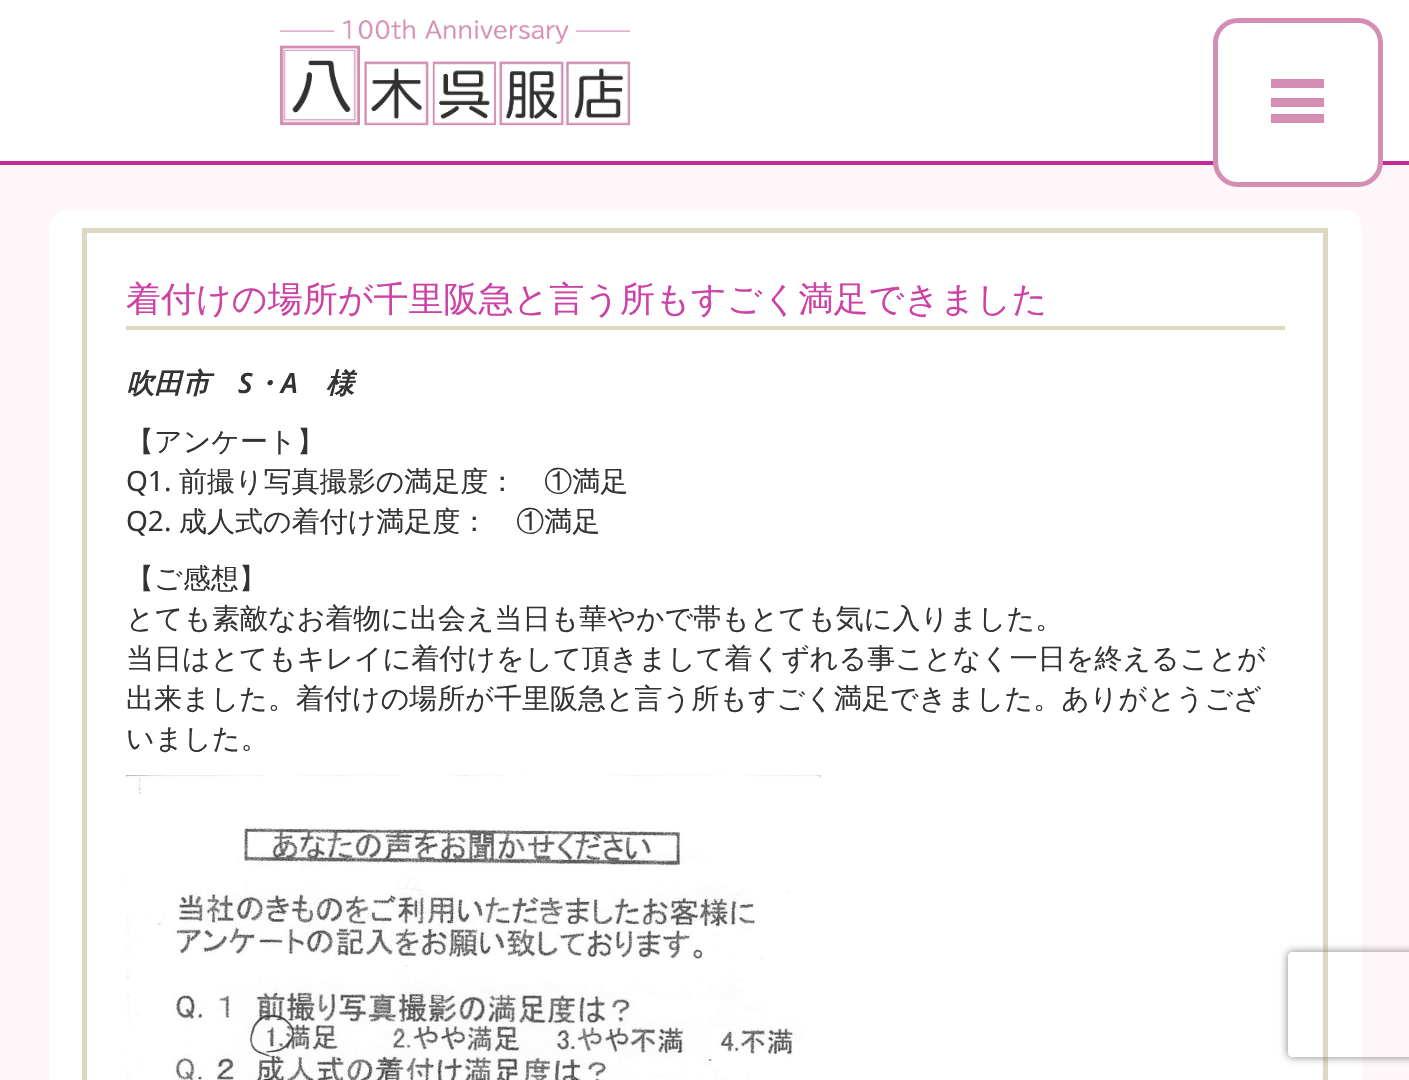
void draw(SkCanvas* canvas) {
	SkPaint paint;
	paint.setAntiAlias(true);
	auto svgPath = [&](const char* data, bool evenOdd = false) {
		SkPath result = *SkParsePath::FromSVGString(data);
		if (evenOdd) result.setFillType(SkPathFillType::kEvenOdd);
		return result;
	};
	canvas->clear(0xfffff6f9);
	paint.setColor(0xffffffff);
	canvas->drawRect(SkRect::MakeXYWH(0, 0, 1409, 161), paint);
	paint.setColor(0xffc62897);
	canvas->drawRect(SkRect::MakeXYWH(0, 161, 1409, 4), paint);
	canvas->drawImageRect(SkImages::DeferredFromEncodedData(SkData::MakeFromFileName("img1.png")), SkRect::MakeXYWH(280, 19, 350, 107), SkSamplingOptions());
	paint.setColor(0xffffffff);
	canvas->drawRoundRect(SkRect::MakeXYWH(1215.5, 20.5, 165, 164), 22.5, 22.5, paint);
	paint.setStroke(true);
	paint.setStrokeWidth(5);
	paint.setColor(0xffd48eb3);
	canvas->drawRoundRect(SkRect::MakeXYWH(1215.5, 20.5, 165, 164), 22.5, 22.5, paint);
	paint.setStroke(false);
	canvas->drawRect(SkRect::MakeXYWH(1271, 98, 53, 9), paint);
	canvas->drawRect(SkRect::MakeXYWH(1271, 79, 53, 9), paint);
	canvas->drawRect(SkRect::MakeXYWH(1271, 114, 53, 9), paint);
	paint.setColor(0xffffffff);
	canvas->drawRoundRect(SkRect::MakeXYWH(49, 210, 1313, 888), 18, 18, paint);
	paint.setStroke(true);
	paint.setColor(0xffded7c1);
	canvas->drawRect(SkRect::MakeXYWH(84.5, 230.5, 1241, 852), paint);
	paint.setStroke(false);
	canvas->drawRect(SkRect::MakeXYWH(126, 326, 1159, 4), paint);
	SkFont f1(fontMgr->matchFamilyStyle("WenQuanYi Zen Hei", SkFontStyle(500, SkFontStyle::kNormal_Width, SkFontStyle::kUpright_Slant)), 35);
	f1.setSubpixel(true);
	paint.setColor(0xffcd42a4);
	canvas->drawString("着付けの場所が千里阪急と言う所もすごく満足できました", 126, 311, f1, paint);
	SkFont f2(fontMgr->matchFamilyStyle("WenQuanYi Zen Hei", SkFontStyle::BoldItalic()), 28);
	f2.setSubpixel(true);
	paint.setColor(0xff333333);
	canvas->drawString("吹田市", 126, 393, f2, paint);
	SkFont f3(fontMgr->matchFamilyStyle("Noto Sans", SkFontStyle(600, SkFontStyle::kNormal_Width, SkFontStyle::kItalic_Slant)), 28);
	f3.setSubpixel(true);
	canvas->drawString("S", 238, 393, f3, paint);
	canvas->drawString("・", 253, 393, f2, paint);
	canvas->drawString("A", 281, 393, f3, paint);
	canvas->drawString("様", 326, 393, f2, paint);
	SkFont f4(fontMgr->matchFamilyStyle("WenQuanYi Zen Hei", SkFontStyle(500, SkFontStyle::kNormal_Width, SkFontStyle::kUpright_Slant)), 28);
	f4.setSubpixel(true);
	canvas->drawString("【アンケート】", 126, 451, f4, paint);
	SkFont f5(fontMgr->matchFamilyStyle("Noto Sans", SkFontStyle::Normal()), 28);
	f5.setSubpixel(true);
	canvas->drawString("Q1.", 126, 491, f5, paint);
	canvas->drawString("前撮り写真撮影の満足度：　①満足", 179, 491, f4, paint);
	canvas->drawString("Q2.", 126, 531, f5, paint);
	canvas->drawString("成人式の着付け満足度：　①満足", 179, 531, f4, paint);
	canvas->drawString("【ご感想】", 126, 588, f4, paint);
	canvas->drawString("とても素敵なお着物に出会え当日も華やかで帯もとても気に入りました。", 126, 628, f4, paint);
	canvas->drawString("当日はとてもキレイに着付けをして頂きまして着くずれる事ことなく一日を終えることが", 126, 668, f4, paint);
	canvas->drawString("出来ました。着付けの場所が千里阪急と言う所もすごく満足できました。ありがとうござ", 126, 708, f4, paint);
	canvas->drawString("いました。", 126, 748, f4, paint);
	canvas->drawImageRect(SkImages::DeferredFromEncodedData(SkData::MakeFromFileName("img2.png")), SkRect::MakeXYWH(126, 775, 695, 305), SkSamplingOptions());
	canvas->save();
	canvas->clipPath(svgPath("M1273 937H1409V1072H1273ZM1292 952H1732C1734 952 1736 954 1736 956V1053C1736 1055 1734 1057 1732 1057H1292C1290 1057 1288 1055 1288 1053V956C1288 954 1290 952 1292 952Z", true), true);
	paint.setColor(0xff808080);
	paint.setMaskFilter(SkMaskFilter::MakeBlur(kNormal_SkBlurStyle, 4.5));
	canvas->drawRoundRect(SkRect::MakeXYWH(1288, 952, 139, 105), 4, 4, paint);
	paint.setMaskFilter(nullptr);
	canvas->restore();
}
